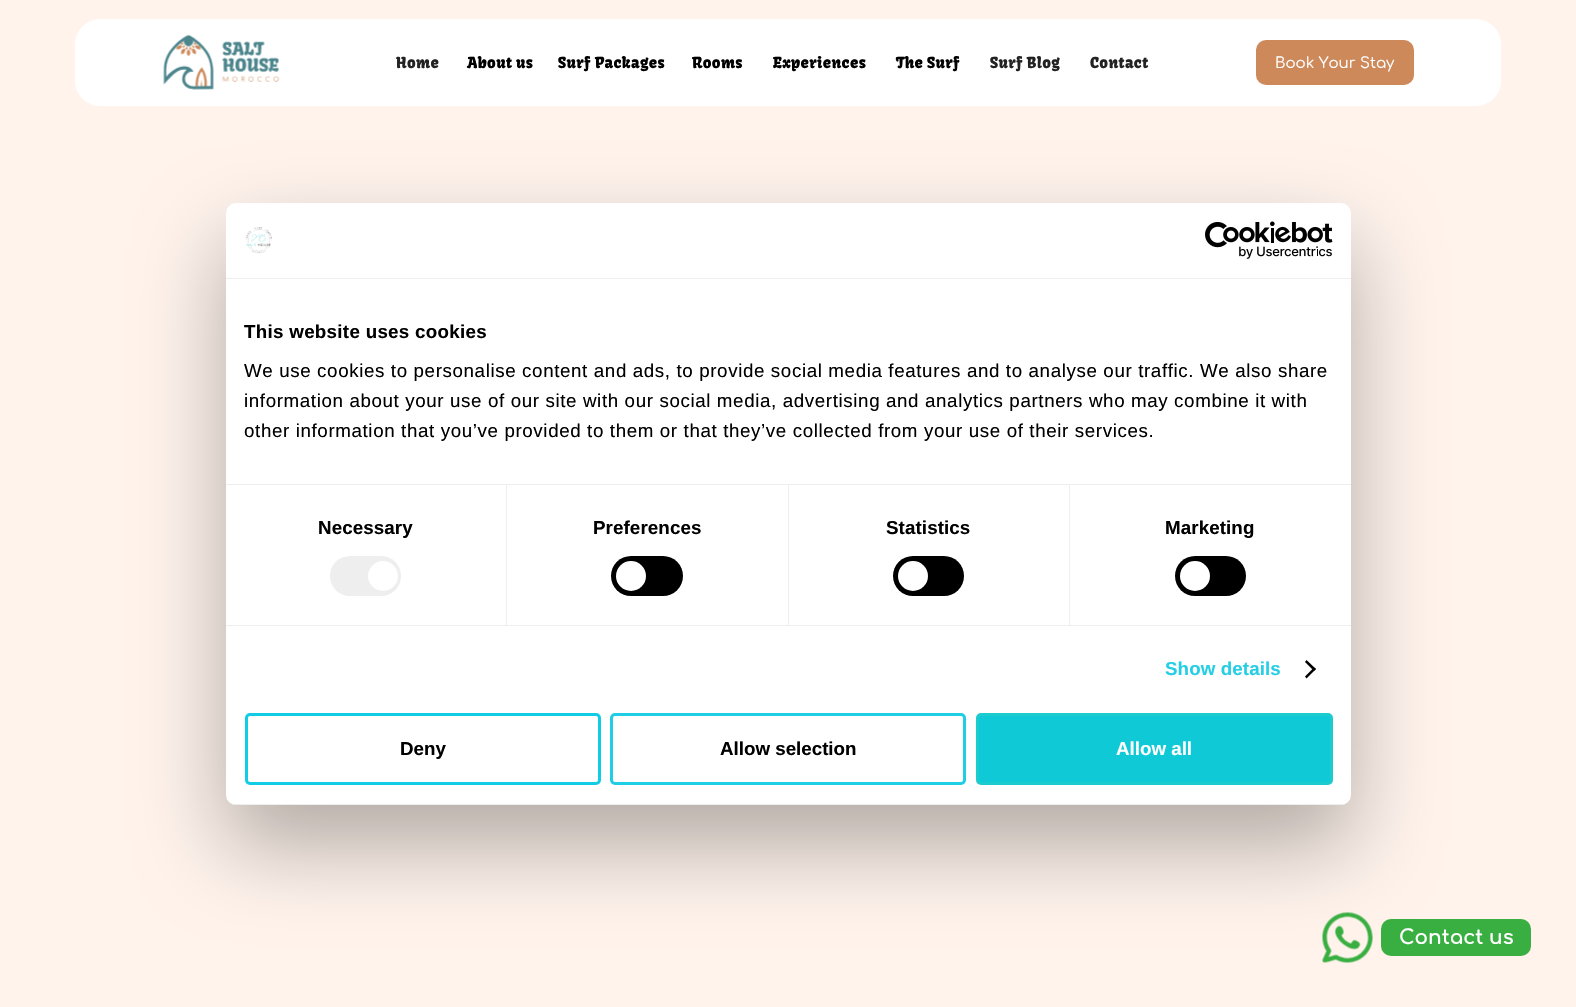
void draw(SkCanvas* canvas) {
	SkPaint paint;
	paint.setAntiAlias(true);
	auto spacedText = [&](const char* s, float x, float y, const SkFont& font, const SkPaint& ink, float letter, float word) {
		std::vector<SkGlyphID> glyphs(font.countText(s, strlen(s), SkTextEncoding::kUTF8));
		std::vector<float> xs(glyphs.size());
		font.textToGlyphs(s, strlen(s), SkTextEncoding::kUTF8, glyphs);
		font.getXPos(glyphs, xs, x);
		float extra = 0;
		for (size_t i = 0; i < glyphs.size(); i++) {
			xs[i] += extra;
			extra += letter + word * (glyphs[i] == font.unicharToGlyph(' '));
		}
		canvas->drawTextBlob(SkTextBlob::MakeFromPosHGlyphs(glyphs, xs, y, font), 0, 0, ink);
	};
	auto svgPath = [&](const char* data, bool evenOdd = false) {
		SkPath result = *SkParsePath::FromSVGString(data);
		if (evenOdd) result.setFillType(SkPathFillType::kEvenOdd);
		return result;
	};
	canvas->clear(0xfffff3ec);
	paint.setColor(0xffffffff);
	canvas->drawRoundRect(SkRect::MakeXYWH(75, 19, 1426, 87), 25, 25, paint);
	canvas->drawImageRect(SkImages::DeferredFromEncodedData(SkData::MakeFromFileName("img1.png")), SkRect::MakeXYWH(163, 34, 117, 56), SkSamplingOptions());
	SkFont f1(fontMgr->matchFamilyStyle("Kavoon", SkFontStyle::Normal()), 15);
	f1.setSubpixel(true);
	paint.setColor(0xff222222);
	spacedText("Home", 396, 68, f1, paint, 0.4, 0);
	paint.setColor(0xff000000);
	spacedText("About us", 467, 68, f1, paint, 0.4, 0);
	spacedText("Surf Packages", 558, 68, f1, paint, 0.4, 0);
	spacedText("Rooms", 692, 68, f1, paint, 0.4, 0);
	spacedText("Experiences", 773, 68, f1, paint, 0.4, 0);
	spacedText("The Surf", 896, 68, f1, paint, 0.4, 0);
	paint.setColor(0xff222222);
	spacedText("Surf Blog", 990, 68, f1, paint, 0.4, 0);
	spacedText("Contact", 1090, 68, f1, paint, 0.4, 0);
	paint.setColor(0xffcd895a);
	canvas->drawRoundRect(SkRect::MakeXYWH(1256, 40, 158, 45), 10, 10, paint);
	SkFont f2(fontMgr->matchFamilyStyle("Comfortaa", SkFontStyle::Normal()), 15);
	f2.setSubpixel(true);
	paint.setColor(0xffffffff);
	canvas->drawString("Book Your Stay", 1275, 68, f2, paint);
	paint.setColor(0x4d000000);
	paint.setMaskFilter(SkMaskFilter::MakeBlur(kNormal_SkBlurStyle, 42.5));
	canvas->drawRoundRect(SkRect::MakeXYWH(226, 243, 1125, 602), 10, 10, paint);
	paint.setMaskFilter(nullptr);
	paint.setColor(0xffffffff);
	canvas->drawRoundRect(SkRect::MakeXYWH(226, 203, 1125, 602), 10, 10, paint);
	paint.setColor(0xffeeeeee);
	canvas->drawRect(SkRect::MakeXYWH(226, 278, 1125, 1), paint);
	canvas->drawImageRect(SkImages::DeferredFromEncodedData(SkData::MakeFromFileName("img2.png")), SkRect::MakeXYWH(245, 227, 27, 27), SkSamplingOptions());
	canvas->drawImageRect(SkImages::DeferredFromEncodedData(SkData::MakeFromFileName("img3.png")), SkRect::MakeXYWH(1205, 221, 128, 38), SkSamplingOptions());
	canvas->drawRect(SkRect::MakeXYWH(226, 484, 1125, 1), paint);
	SkFont f3(fontMgr->matchFamilyStyle("Liberation Sans", SkFontStyle::Bold()), 18.75);
	f3.setSubpixel(true);
	paint.setColor(0xff000000);
	spacedText("This website uses cookies", 244, 338, f3, paint, 0.3, 0);
	SkFont f4(fontMgr->matchFamilyStyle("Liberation Sans", SkFontStyle::Normal()), 18.75);
	f4.setSubpixel(true);
	spacedText("We use cookies to personalise content and ads, to provide social media features and to analyse our traffic. We also share", 244, 377, f4, paint, 0.62, 0);
	spacedText("information about your use of our site with our social media, advertising and analytics partners who may combine it with", 244, 407, f4, paint, 0.62, 0);
	spacedText("other information that you’ve provided to them or that they’ve collected from your use of their services.", 244, 437, f4, paint, 0.62, 0);
	paint.setColor(0xffeeeeee);
	canvas->drawRect(SkRect::MakeXYWH(226, 625, 1125, 1), paint);
	canvas->drawRect(SkRect::MakeXYWH(506, 485, 1, 140), paint);
	paint.setColor(0xff000000);
	spacedText("Necessary", 318, 534, f3, paint, 0.1, 0);
	paint.setColor(0xffeeeeee);
	canvas->drawRoundRect(SkRect::MakeXYWH(330, 556, 71, 40), 20, 20, paint);
	paint.setColor(0xffffffff);
	canvas->drawCircle(383, 576, 15, paint);
	paint.setColor(0xffeeeeee);
	canvas->drawRect(SkRect::MakeXYWH(788, 485, 1, 140), paint);
	paint.setColor(0xff000000);
	spacedText("Preferences", 593, 534, f3, paint, 0.1, 0);
	canvas->drawRoundRect(SkRect::MakeXYWH(611, 556, 72, 40), 20, 20, paint);
	paint.setColor(0xffffffff);
	canvas->drawCircle(631, 576, 15, paint);
	paint.setColor(0xffeeeeee);
	canvas->drawRect(SkRect::MakeXYWH(1069, 485, 1, 140), paint);
	paint.setColor(0xff000000);
	spacedText("Statistics", 886, 534, f3, paint, 0.1, 0);
	canvas->drawRoundRect(SkRect::MakeXYWH(893, 556, 71, 40), 20, 20, paint);
	paint.setColor(0xffffffff);
	canvas->drawCircle(913, 576, 15, paint);
	paint.setColor(0xff000000);
	spacedText("Marketing", 1165, 534, f3, paint, 0.1, 0);
	canvas->drawRoundRect(SkRect::MakeXYWH(1175, 556, 71, 40), 20, 20, paint);
	paint.setColor(0xffffffff);
	canvas->drawCircle(1195, 576, 15, paint);
	paint.setColor(0xff24cfe5);
	spacedText("Show details", 1165, 675, f3, paint, 0.1, 0);
	paint.setColor(0xff000000);
	canvas->drawPath(svgPath("M1306.5 660L1316 669L1314 671L1305 662Z"), paint);
	canvas->drawPath(svgPath("M1314 667.5L1316 669L1306.5 678.5L1305 676.5Z"), paint);
	canvas->save();
	canvas->clipPath(svgPath("M236 203H1341C1346.5 203 1351 207.5 1351 213V795C1351 800.5 1346.5 805 1341 805H236C230.5 805 226 800.5 226 795V213C226 207.5 230.5 203 236 203Z"), true);
	paint.setColor(0xffeeeeee);
	canvas->drawRect(SkRect::MakeXYWH(226, 804, 1125, 1), paint);
	canvas->restore();
	paint.setStroke(true);
	paint.setStrokeWidth(3);
	paint.setColor(0xff10cce5);
	canvas->drawRoundRect(SkRect::MakeXYWH(246.5, 714.5, 353, 69), 3.5, 3.5, paint);
	paint.setStroke(false);
	paint.setColor(0xff000000);
	canvas->drawString("Deny", 400, 755, f3, paint);
	paint.setStroke(true);
	paint.setColor(0xff1fcee5);
	canvas->drawRoundRect(SkRect::MakeXYWH(611.5, 714.5, 353, 69), 3.5, 3.5, paint);
	paint.setStroke(false);
	paint.setColor(0xff000000);
	canvas->drawString("Allow selection", 720, 755, f3, paint);
	paint.setColor(0xff0fc9d7);
	canvas->drawRoundRect(SkRect::MakeXYWH(977.5, 714.5, 354, 69), 3.5, 3.5, paint);
	paint.setStroke(true);
	paint.setColor(0xff1ccbce);
	canvas->drawRoundRect(SkRect::MakeXYWH(977.5, 714.5, 354, 69), 3.5, 3.5, paint);
	paint.setStroke(false);
	paint.setColor(0xffffffff);
	canvas->drawString("Allow all", 1116, 755, f3, paint);
	canvas->drawImageRect(SkImages::DeferredFromEncodedData(SkData::MakeFromFileName("img4.png")), SkRect::MakeXYWH(1322, 912, 51, 51), SkSamplingOptions());
	paint.setColor(0xff39ae41);
	canvas->drawRoundRect(SkRect::MakeXYWH(1381, 919, 150, 37), 10, 10, paint);
	SkFont f5(fontMgr->matchFamilyStyle("Comfortaa", SkFontStyle::Bold()), 20);
	f5.setSubpixel(true);
	paint.setColor(0xffffffff);
	canvas->drawString("Contact us", 1399, 944, f5, paint);
}
